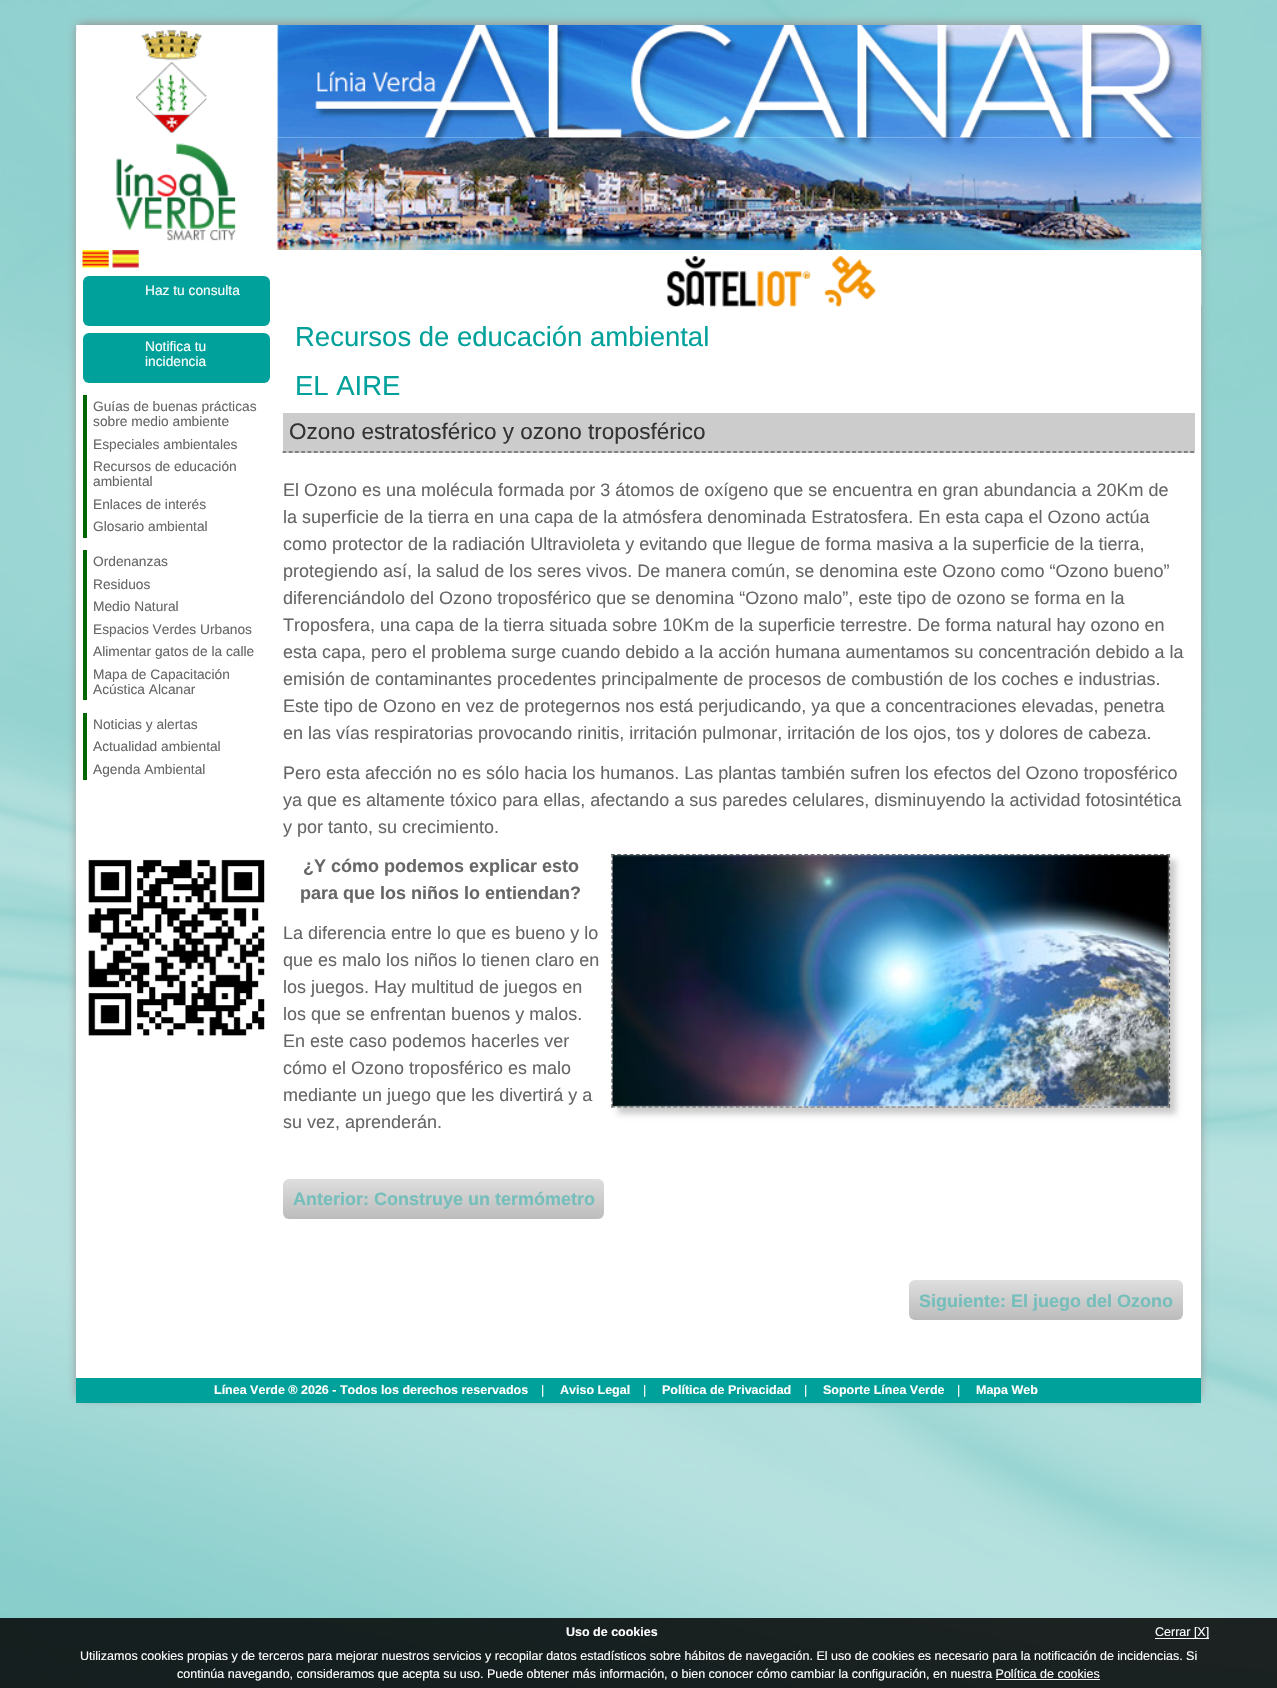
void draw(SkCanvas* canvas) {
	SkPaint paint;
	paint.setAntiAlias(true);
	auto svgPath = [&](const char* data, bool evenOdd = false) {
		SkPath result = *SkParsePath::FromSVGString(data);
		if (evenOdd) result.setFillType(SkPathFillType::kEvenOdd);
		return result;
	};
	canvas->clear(0xffffffff);
	canvas->drawImageRect(SkImages::DeferredFromEncodedData(SkData::MakeFromFileName("img1.png")), SkRect::MakeXYWH(0, 0, 1277, 1688), SkSamplingOptions());
	paint.setColor(0xff999999);
	paint.setMaskFilter(SkMaskFilter::MakeBlur(kNormal_SkBlurStyle, 4.5));
	canvas->drawRoundRect(SkRect::MakeXYWH(76, 23, 1125, 1377), 9, 9, paint);
	paint.setMaskFilter(nullptr);
	paint.setColor(0xffffffff);
	canvas->drawRoundRect(SkRect::MakeXYWH(76, 25, 1125, 1378), 9, 9, paint);
	canvas->drawImageRect(SkImages::DeferredFromEncodedData(SkData::MakeFromFileName("img2.png")), SkRect::MakeXYWH(76, 25, 1126, 113), SkSamplingOptions());
	canvas->drawImageRect(SkImages::DeferredFromEncodedData(SkData::MakeFromFileName("img3.png")), SkRect::MakeXYWH(116, 143, 120, 98), SkSamplingOptions());
	canvas->drawImageRect(SkImages::DeferredFromEncodedData(SkData::MakeFromFileName("img4.png")), SkRect::MakeXYWH(276, 137, 926, 113), SkSamplingOptions());
	canvas->drawImageRect(SkImages::DeferredFromEncodedData(SkData::MakeFromFileName("img5.png")), SkRect::MakeXYWH(667, 256, 535, 51), SkSamplingOptions());
	canvas->drawImageRect(SkImages::DeferredFromEncodedData(SkData::MakeFromFileName("img6.png")), SkRect::MakeXYWH(82, 250, 27, 18), SkSamplingOptions());
	canvas->drawImageRect(SkImages::DeferredFromEncodedData(SkData::MakeFromFileName("img7.png")), SkRect::MakeXYWH(112, 250, 27, 18), SkSamplingOptions());
	paint.setColor(0xff00a19b);
	canvas->drawRoundRect(SkRect::MakeXYWH(83, 276, 187, 50), 6, 6, paint);
	SkFont f1(fontMgr->matchFamilyStyle("Liberation Sans", SkFontStyle::Normal()), 13.75);
	f1.setSubpixel(true);
	paint.setColor(0xffffffff);
	canvas->drawString("Haz tu consulta", 145, 295, f1, paint);
	paint.setColor(0xff00a19b);
	canvas->drawRoundRect(SkRect::MakeXYWH(83, 333, 187, 50), 6, 6, paint);
	paint.setColor(0xffffffff);
	canvas->drawString("Notifica tu", 145, 351, f1, paint);
	canvas->drawString("incidencia", 145, 366, f1, paint);
	paint.setColor(0xff006600);
	canvas->drawRect(SkRect::MakeXYWH(83, 395, 4, 143), paint);
	paint.setColor(0xff666666);
	canvas->drawString("Guías de buenas prácticas", 93, 411, f1, paint);
	canvas->drawString("sobre medio ambiente", 93, 426, f1, paint);
	canvas->drawString("Especiales ambientales", 93, 449, f1, paint);
	canvas->drawString("Recursos de educación", 93, 471, f1, paint);
	canvas->drawString("ambiental", 93, 486, f1, paint);
	canvas->drawString("Enlaces de interés", 93, 509, f1, paint);
	canvas->drawString("Glosario ambiental", 93, 531, f1, paint);
	paint.setColor(0xff006600);
	canvas->drawRect(SkRect::MakeXYWH(83, 550, 4, 150), paint);
	paint.setColor(0xff666666);
	canvas->drawString("Ordenanzas", 93, 566, f1, paint);
	canvas->drawString("Residuos", 93, 589, f1, paint);
	canvas->drawString("Medio Natural", 93, 611, f1, paint);
	canvas->drawString("Espacios Verdes Urbanos", 93, 634, f1, paint);
	canvas->drawString("Alimentar gatos de la calle", 93, 656, f1, paint);
	canvas->drawString("Mapa de Capacitación", 93, 679, f1, paint);
	canvas->drawString("Acústica Alcanar", 93, 694, f1, paint);
	paint.setColor(0xff006600);
	canvas->drawRect(SkRect::MakeXYWH(83, 713, 4, 67), paint);
	paint.setColor(0xff666666);
	canvas->drawString("Noticias y alertas", 93, 729, f1, paint);
	canvas->drawString("Actualidad ambiental", 93, 751, f1, paint);
	canvas->drawString("Agenda Ambiental", 93, 774, f1, paint);
	canvas->drawImageRect(SkImages::DeferredFromEncodedData(SkData::MakeFromFileName("img8.png")), SkRect::MakeXYWH(88, 859, 177, 177), SkSamplingOptions());
	SkFont f2(fontMgr->matchFamilyStyle("Liberation Sans", SkFontStyle::Normal()), 27.5);
	f2.setSubpixel(true);
	paint.setColor(0xff00a19b);
	canvas->drawString("Recursos de educación ambiental", 295, 346, f2, paint);
	canvas->drawString("EL AIRE", 295, 395, f2, paint);
	paint.setColor(0xffcccccc);
	canvas->drawRect(SkRect::MakeXYWH(283, 413, 912, 40), paint);
	paint.setStroke(true);
	paint.setStrokeWidth(1.2);
	paint.setColor(0xff333333);
	paint.setPathEffect(SkDashPathEffect::Make({{3.75f, 2.51f}}, 0));
	canvas->drawPath(svgPath("M282.5 452H1195"), paint);
	paint.setPathEffect(nullptr);
	SkFont f3(fontMgr->matchFamilyStyle("Liberation Sans", SkFontStyle::Normal()), 22.5);
	f3.setSubpixel(true);
	paint.setStroke(false);
	canvas->drawString("Ozono estratosférico y ozono troposférico", 289, 439, f3, paint);
	SkFont f4(fontMgr->matchFamilyStyle("Liberation Sans", SkFontStyle::Normal()), 18);
	f4.setSubpixel(true);
	paint.setColor(0xff666666);
	canvas->drawString("El Ozono es una molécula formada por 3 átomos de oxígeno que se encuentra en gran abundancia a 20Km de", 283, 496, f4, paint);
	canvas->drawString("la superficie de la tierra en una capa de la atmósfera denominada Estratosfera. En esta capa el Ozono actúa", 283, 523, f4, paint);
	canvas->drawString("como protector de la radiación Ultravioleta y evitando que llegue de forma masiva a la superficie de la tierra,", 283, 550, f4, paint);
	canvas->drawString("protegiendo así, la salud de los seres vivos. De manera común, se denomina este Ozono como “Ozono bueno”", 283, 577, f4, paint);
	canvas->drawString("diferenciándolo del Ozono troposférico que se denomina “Ozono malo”, este tipo de ozono se forma en la", 283, 604, f4, paint);
	canvas->drawString("Troposfera, una capa de la tierra situada sobre 10Km de la superficie terrestre. De forma natural hay ozono en", 283, 631, f4, paint);
	canvas->drawString("esta capa, pero el problema surge cuando debido a la acción humana aumentamos su concentración debido a la", 283, 658, f4, paint);
	canvas->drawString("emisión de contaminantes procedentes principalmente de procesos de combustión de los coches e industrias.", 283, 685, f4, paint);
	canvas->drawString("Este tipo de Ozono en vez de protegernos nos está perjudicando, ya que a concentraciones elevadas, penetra", 283, 712, f4, paint);
	canvas->drawString("en las vías respiratorias provocando rinitis, irritación pulmonar, irritación de los ojos, tos y dolores de cabeza.", 283, 739, f4, paint);
	canvas->drawString("Pero esta afección no es sólo hacia los humanos. Las plantas también sufren los efectos del Ozono troposférico", 283, 779, f4, paint);
	canvas->drawString("ya que es altamente tóxico para ellas, afectando a sus paredes celulares, disminuyendo la actividad fotosintética", 283, 806, f4, paint);
	canvas->drawString("y por tanto, su crecimiento.", 283, 833, f4, paint);
	SkFont f5(fontMgr->matchFamilyStyle("Liberation Sans", SkFontStyle::Bold()), 18);
	f5.setSubpixel(true);
	canvas->drawString("¿Y cómo podemos explicar esto", 303, 872, f5, paint);
	canvas->drawString("para que los niños lo entiendan?", 300, 899, f5, paint);
	paint.setColor(0xffcccccc);
	paint.setMaskFilter(SkMaskFilter::MakeBlur(kNormal_SkBlurStyle, 3));
	canvas->drawRect(SkRect::MakeXYWH(618, 860, 558, 254), paint);
	paint.setMaskFilter(nullptr);
	paint.setStroke(true);
	paint.setColor(0xff666666);
	paint.setPathEffect(SkDashPathEffect::Make({{3.75f, 2.49f}}, 0));
	canvas->drawPath(svgPath("M611 854.5H1170"), paint);
	paint.setPathEffect(nullptr);
	paint.setPathEffect(SkDashPathEffect::Make({{3.75f, 2.5f}}, 0));
	canvas->drawPath(svgPath("M1169.5 854V1107.5"), paint);
	paint.setPathEffect(nullptr);
	paint.setPathEffect(SkDashPathEffect::Make({{3.75f, 2.49f}}, 0));
	canvas->drawPath(svgPath("M611 1107H1170"), paint);
	paint.setPathEffect(nullptr);
	paint.setPathEffect(SkDashPathEffect::Make({{3.75f, 2.5f}}, 0));
	canvas->drawPath(svgPath("M612 854V1107.5"), paint);
	paint.setPathEffect(nullptr);
	canvas->drawImageRect(SkImages::DeferredFromEncodedData(SkData::MakeFromFileName("img9.png")), SkRect::MakeXYWH(612, 855, 557, 252), SkSamplingOptions());
	paint.setStroke(false);
	canvas->drawString("La diferencia entre lo que es bueno y lo", 283, 939, f4, paint);
	canvas->drawString("que es malo los niños lo tienen claro en", 283, 966, f4, paint);
	canvas->drawString("los juegos. Hay multitud de juegos en", 283, 993, f4, paint);
	canvas->drawString("los que se enfrentan buenos y malos.", 283, 1020, f4, paint);
	canvas->drawString("En este caso podemos hacerles ver", 283, 1047, f4, paint);
	canvas->drawString("cómo el Ozono troposférico es malo", 283, 1074, f4, paint);
	canvas->drawString("mediante un juego que les divertirá y a", 283, 1101, f4, paint);
	canvas->drawString("su vez, aprenderán.", 283, 1128, f4, paint);
	{
		const SkColor colors[] = {0xffdedede, 0xffbcbcbc};
		const float stops[] = {0, 1};
		const SkPoint ends[] = {{443, 1179}, {443, 1219}};
		paint.setShader(SkGradientShader::MakeLinear(ends, colors, stops, 2, SkTileMode::kClamp));
		paint.setAlpha(255);
	}
	canvas->drawRoundRect(SkRect::MakeXYWH(283, 1179, 321, 40), 6, 6, paint);
	paint.setShader(nullptr);
	paint.setColor(0xff74bebb);
	canvas->drawString("Anterior: Construye un termómetro", 293, 1205, f5, paint);
	{
		const SkColor colors[] = {0xffdedede, 0xffbcbcbc};
		const float stops[] = {0, 1};
		const SkPoint ends[] = {{1046, 1280}, {1046, 1320}};
		paint.setShader(SkGradientShader::MakeLinear(ends, colors, stops, 2, SkTileMode::kClamp));
		paint.setAlpha(255);
	}
	canvas->drawRoundRect(SkRect::MakeXYWH(909, 1280, 274, 40), 6, 6, paint);
	paint.setShader(nullptr);
	paint.setColor(0xff74bebb);
	canvas->drawString("Siguiente: El juego del Ozono", 919, 1307, f5, paint);
	paint.setColor(0xff00a19b);
	canvas->drawRect(SkRect::MakeXYWH(76, 1378, 1125, 25), paint);
	SkFont f6(fontMgr->matchFamilyStyle("Liberation Sans", SkFontStyle::Bold()), 12.5);
	f6.setSubpixel(true);
	paint.setColor(0xffffffff);
	canvas->drawString("Línea Verde ® 2026 - Todos los derechos reservados", 214, 1394, f6, paint);
	SkFont f7(fontMgr->matchFamilyStyle("Liberation Sans", SkFontStyle::Normal()), 12.5);
	f7.setSubpixel(true);
	canvas->drawString("|", 541, 1394, f7, paint);
	canvas->drawString("Aviso Legal", 560, 1394, f6, paint);
	canvas->drawString("|", 643, 1394, f7, paint);
	canvas->drawString("Política de Privacidad", 662, 1394, f6, paint);
	canvas->drawString("|", 804, 1394, f7, paint);
	canvas->drawString("Soporte Línea Verde", 823, 1394, f6, paint);
	canvas->drawString("|", 957, 1394, f7, paint);
	canvas->drawString("Mapa Web", 976, 1394, f6, paint);
	paint.setColor(0xd9000000);
	canvas->drawRect(SkRect::MakeXYWH(0, 1618, 1277, 70), paint);
	paint.setColor(0xffffffff);
	canvas->drawString("Uso de cookies", 566, 1636, f6, paint);
	canvas->drawRect(SkRect::MakeXYWH(1155, 1638, 54, 1), paint);
	canvas->drawString("Cerrar [X]", 1155, 1636, f7, paint);
	canvas->drawString("Utilizamos cookies propias y de terceros para mejorar nuestros servicios y recopilar datos estadísticos sobre hábitos de navegación. El uso de cookies es necesario para la notificación de incidencias. Si", 80, 1660, f7, paint);
	canvas->drawString("continúa navegando, consideramos que acepta su uso. Puede obtener más información, o bien conocer cómo cambiar la configuración, en nuestra Política de cookies", 177, 1678, f7, paint);
	canvas->drawRect(SkRect::MakeXYWH(996, 1679, 104, 1), paint);
}
